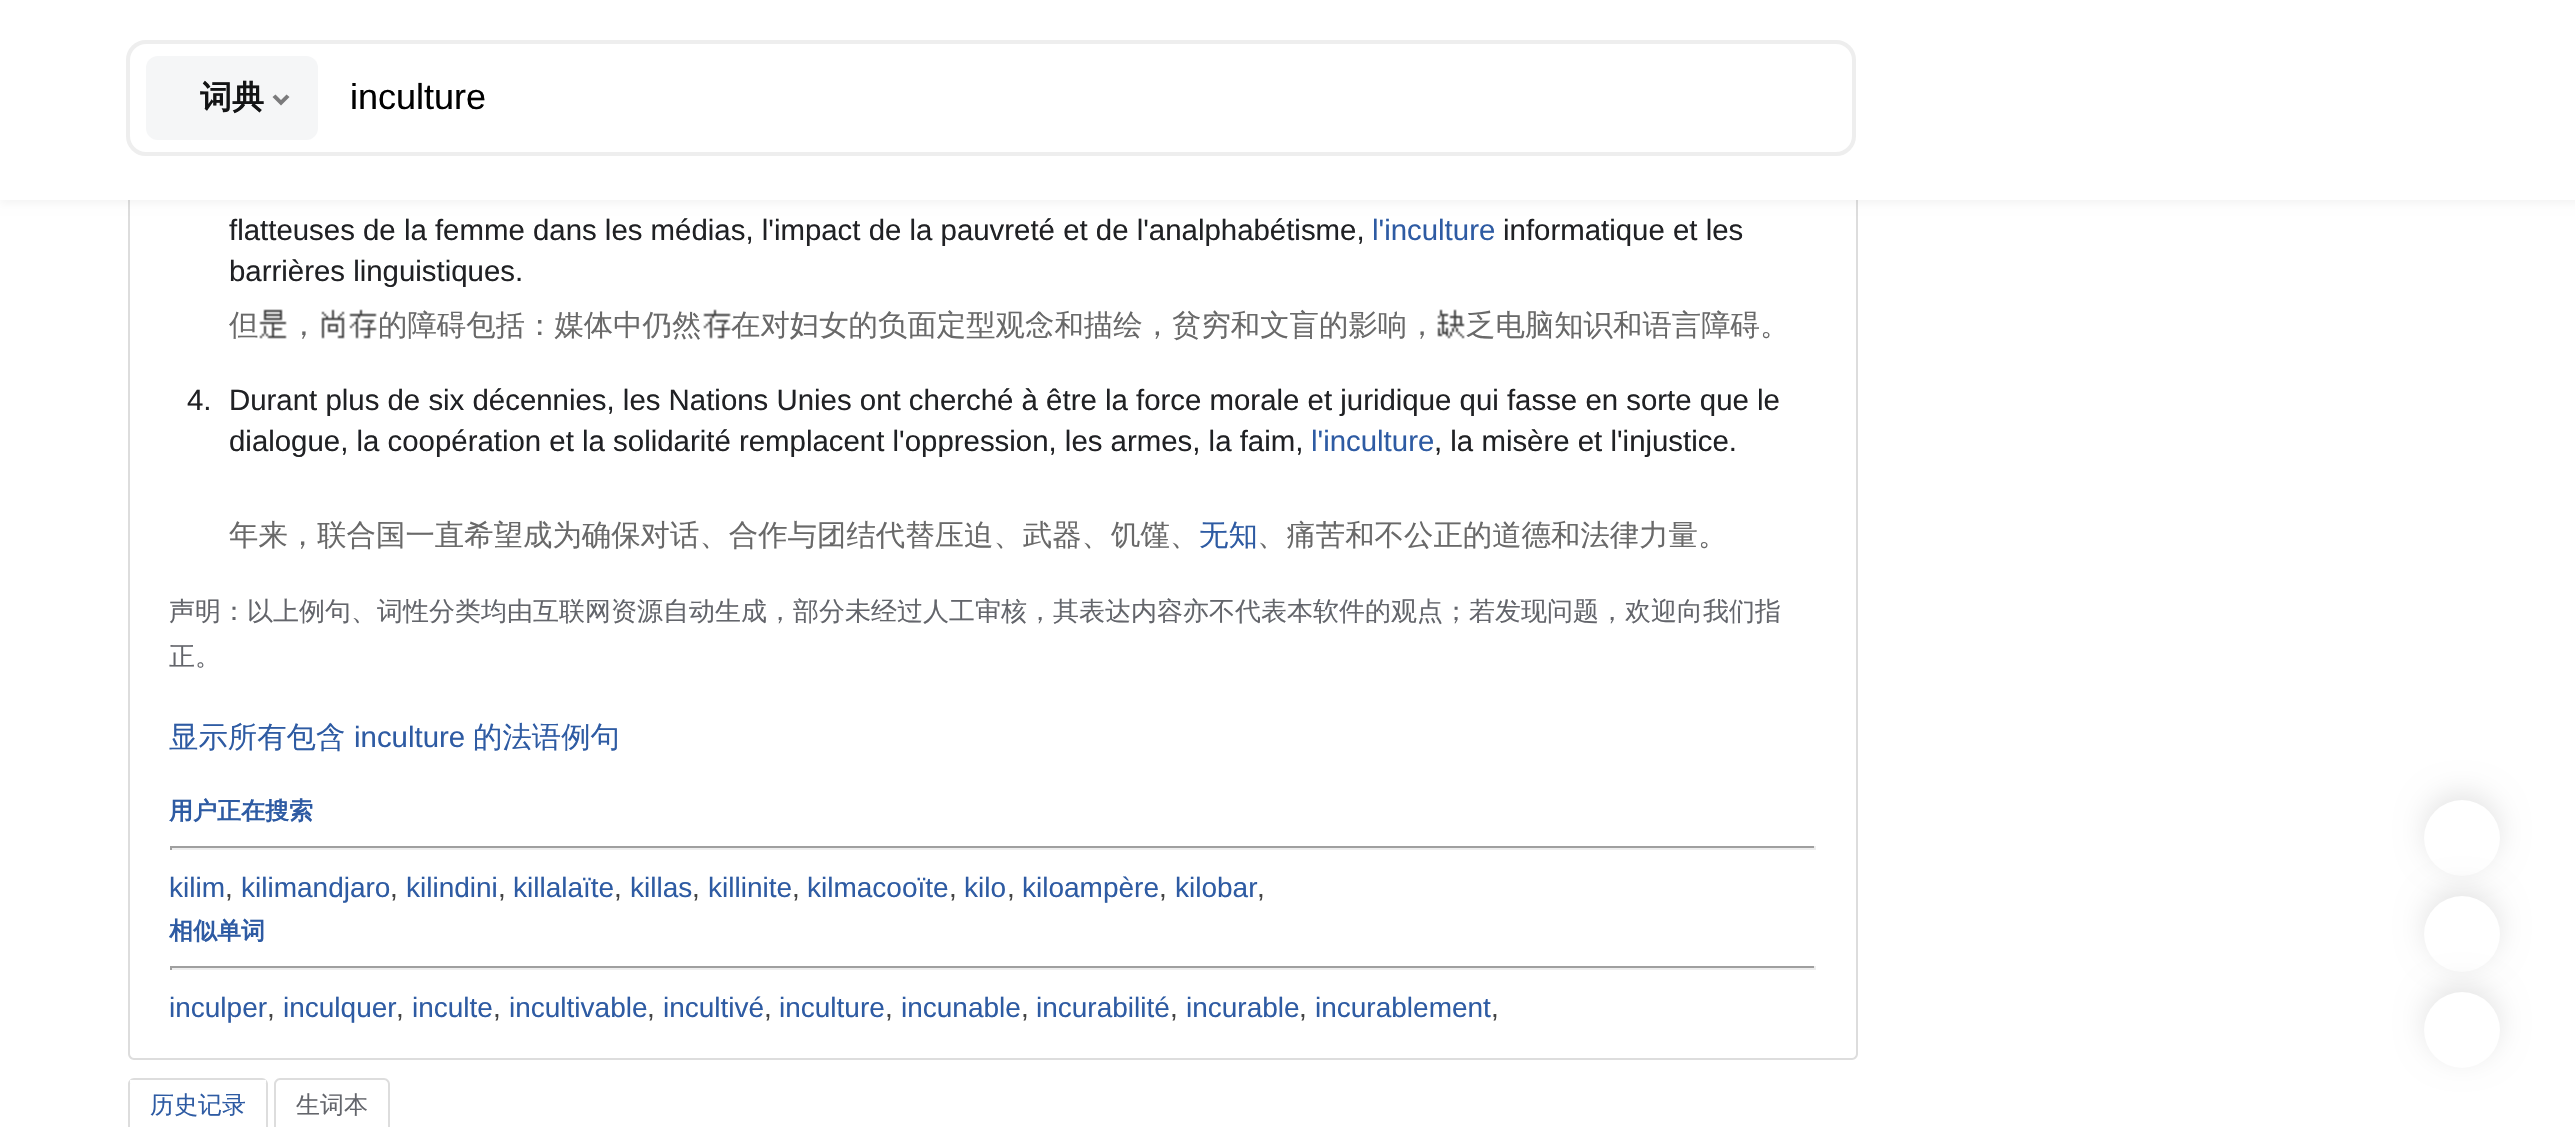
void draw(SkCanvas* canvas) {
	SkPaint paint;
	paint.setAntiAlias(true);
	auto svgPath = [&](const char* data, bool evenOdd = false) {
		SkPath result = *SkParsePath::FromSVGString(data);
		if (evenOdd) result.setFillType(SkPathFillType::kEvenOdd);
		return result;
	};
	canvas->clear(0xffffffff);
	paint.setColor(0xffdddddd);
	canvas->drawPath(svgPath("M128-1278H1852C1855-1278 1858-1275 1858-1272V1054C1858 1057 1855 1060 1852 1060H134C131 1060 128 1057 128 1054ZM130-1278H1852C1854-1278 1856-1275 1856-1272V1054C1856 1056 1854 1058 1852 1058H134C132 1058 130 1056 130 1054Z", true), paint);
	paint.setColor(0x0a000000);
	paint.setMaskFilter(SkMaskFilter::MakeBlur(kNormal_SkBlurStyle, 4));
	canvas->drawRect(SkRect::MakeXYWH(0, 4, 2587, 200), paint);
	paint.setMaskFilter(nullptr);
	paint.setColor(0xffffffff);
	canvas->drawRect(SkRect::MakeXYWH(0, 0, 2575, 200), paint);
	paint.setStroke(true);
	paint.setStrokeWidth(4);
	paint.setColor(0xffeeeeee);
	canvas->drawRoundRect(SkRect::MakeXYWH(128, 42, 1726, 112), 18, 18, paint);
	paint.setStroke(false);
	paint.setColor(0xfff5f6f7);
	canvas->drawRoundRect(SkRect::MakeXYWH(146, 56, 172, 84), 12, 12, paint);
	SkFont f1(fontMgr->matchFamilyStyle("WenQuanYi Zen Hei", SkFontStyle::Bold()), 32);
	f1.setSubpixel(true);
	paint.setColor(0xff131415);
	canvas->drawString("词典", 200, 108, f1, paint);
	paint.setColor(0xff7b7b7c);
	canvas->drawPath(svgPath("M289.5 97L281 105.5V100L286.5 94.5ZM281 105.5L272.5 97L275.5 94.5L281 100Z"), paint);
	SkFont f2(fontMgr->matchFamilyStyle("Liberation Sans", SkFontStyle::Normal()), 36);
	f2.setSubpixel(true);
	paint.setColor(0xff000000);
	canvas->drawString("inculture", 350, 109, f2, paint);
	SkFont f3(fontMgr->matchFamilyStyle("Liberation Sans", SkFontStyle::Normal()), 29.4);
	f3.setSubpixel(true);
	paint.setColor(0xff202124);
	canvas->drawString("flatteuses de la femme dans les médias, l'impact de la pauvreté et de l'analphabétisme,", 229, 240, f3, paint);
	paint.setColor(0xff2e5ba3);
	canvas->drawString("l'inculture", 1372, 240, f3, paint);
	paint.setColor(0xff202124);
	canvas->drawString("informatique et les", 1503, 240, f3, paint);
	canvas->drawString("barrières linguistiques.", 229, 281, f3, paint);
	SkFont f4(fontMgr->matchFamilyStyle("WenQuanYi Zen Hei", SkFontStyle(500, SkFontStyle::kNormal_Width, SkFontStyle::kUpright_Slant)), 29.4);
	f4.setSubpixel(true);
	paint.setColor(0xff696969);
	canvas->drawString("但", 229, 335, f4, paint);
	canvas->drawImageRect(SkImages::DeferredFromEncodedData(SkData::MakeFromFileName("img1.png")), SkRect::MakeXYWH(259, 309, 28, 30), SkSamplingOptions());
	canvas->drawString("，", 289, 335, f4, paint);
	canvas->drawImageRect(SkImages::DeferredFromEncodedData(SkData::MakeFromFileName("img2.png")), SkRect::MakeXYWH(321, 309, 24, 30), SkSamplingOptions());
	canvas->drawImageRect(SkImages::DeferredFromEncodedData(SkData::MakeFromFileName("img3.png")), SkRect::MakeXYWH(349, 309, 28, 30), SkSamplingOptions());
	canvas->drawString("的障碍包括：媒体中仍然", 378, 335, f4, paint);
	canvas->drawImageRect(SkImages::DeferredFromEncodedData(SkData::MakeFromFileName("img3.png")), SkRect::MakeXYWH(703, 309, 28, 30), SkSamplingOptions());
	canvas->drawString("在对妇女的负面定型观念和描绘，贫穷和文盲的影响，", 731, 335, f4, paint);
	canvas->drawImageRect(SkImages::DeferredFromEncodedData(SkData::MakeFromFileName("img4.png")), SkRect::MakeXYWH(1437, 309, 28, 30), SkSamplingOptions());
	canvas->drawString("乏电脑知识和语言障碍。", 1466, 335, f4, paint);
	paint.setColor(0xff202124);
	canvas->drawString("4.", 187, 410, f3, paint);
	canvas->drawString("Durant plus de six décennies, les Nations Unies ont cherché à être la force morale et juridique qui fasse en sorte que le", 229, 410, f3, paint);
	canvas->drawString("dialogue, la coopération et la solidarité remplacent l'oppression, les armes, la faim,", 229, 451, f3, paint);
	paint.setColor(0xff2e5ba3);
	canvas->drawString("l'inculture", 1311, 451, f3, paint);
	paint.setColor(0xff202124);
	canvas->drawString(", la misère et l'injustice.", 1434, 451, f3, paint);
	paint.setColor(0xff696969);
	canvas->drawString("年来，联合国一直希望成为确保对话、合作与团结代替压迫、武器、饥馑、", 229, 545, f4, paint);
	paint.setColor(0xff2e5ba3);
	canvas->drawString("无知", 1199, 545, f4, paint);
	paint.setColor(0xff696969);
	canvas->drawString("、痛苦和不公正的道德和法律力量。", 1257, 545, f4, paint);
	SkFont f5(fontMgr->matchFamilyStyle("WenQuanYi Zen Hei", SkFontStyle(500, SkFontStyle::kNormal_Width, SkFontStyle::kUpright_Slant)), 26);
	f5.setSubpixel(true);
	paint.setColor(0xff63656b);
	canvas->drawString("声明：以上例句、词性分类均由互联网资源自动生成，部分未经过人工审核，其表达内容亦不代表本软件的观点；若发现问题，欢迎向我们指", 169, 620, f5, paint);
	canvas->drawString("正。", 169, 665, f5, paint);
	paint.setColor(0xff2e5ba3);
	canvas->drawString("显示所有包含", 169, 747, f4, paint);
	canvas->drawString("inculture", 354, 747, f3, paint);
	canvas->drawString("的法语例句", 473, 747, f4, paint);
	SkFont f6(fontMgr->matchFamilyStyle("WenQuanYi Zen Hei", SkFontStyle::Bold()), 24);
	f6.setSubpixel(true);
	canvas->drawString("用户正在搜索", 169, 819, f6, paint);
	paint.setColor(0xff9f9f9f);
	canvas->drawRect(SkRect::MakeXYWH(170, 846, 1646, 2), paint);
	paint.setColor(0xffeeeeee);
	canvas->drawRect(SkRect::MakeXYWH(1814, 846, 2, 4), paint);
	canvas->drawRect(SkRect::MakeXYWH(170, 848, 1646, 2), paint);
	paint.setColor(0xff9f9f9f);
	canvas->drawRect(SkRect::MakeXYWH(170, 846, 2, 4), paint);
	SkFont f7(fontMgr->matchFamilyStyle("Liberation Sans", SkFontStyle::Normal()), 28);
	f7.setSubpixel(true);
	paint.setColor(0xff2e5ba3);
	canvas->drawString("kilim", 169, 897, f7, paint);
	paint.setColor(0xff444444);
	canvas->drawString(",", 225, 897, f7, paint);
	paint.setColor(0xff2e5ba3);
	canvas->drawString("kilimandjaro", 241, 897, f7, paint);
	paint.setColor(0xff444444);
	canvas->drawString(",", 390, 897, f7, paint);
	paint.setColor(0xff2e5ba3);
	canvas->drawString("kilindini", 406, 897, f7, paint);
	paint.setColor(0xff444444);
	canvas->drawString(",", 498, 897, f7, paint);
	paint.setColor(0xff2e5ba3);
	canvas->drawString("killalaïte", 513, 897, f7, paint);
	paint.setColor(0xff444444);
	canvas->drawString(",", 614, 897, f7, paint);
	paint.setColor(0xff2e5ba3);
	canvas->drawString("killas", 630, 897, f7, paint);
	paint.setColor(0xff444444);
	canvas->drawString(",", 692, 897, f7, paint);
	paint.setColor(0xff2e5ba3);
	canvas->drawString("killinite", 708, 897, f7, paint);
	paint.setColor(0xff444444);
	canvas->drawString(",", 792, 897, f7, paint);
	paint.setColor(0xff2e5ba3);
	canvas->drawString("kilmacooïte", 807, 897, f7, paint);
	paint.setColor(0xff444444);
	canvas->drawString(",", 949, 897, f7, paint);
	paint.setColor(0xff2e5ba3);
	canvas->drawString("kilo", 964, 897, f7, paint);
	paint.setColor(0xff444444);
	canvas->drawString(",", 1007, 897, f7, paint);
	paint.setColor(0xff2e5ba3);
	canvas->drawString("kiloampère", 1022, 897, f7, paint);
	paint.setColor(0xff444444);
	canvas->drawString(",", 1159, 897, f7, paint);
	paint.setColor(0xff2e5ba3);
	canvas->drawString("kilobar", 1175, 897, f7, paint);
	paint.setColor(0xff444444);
	canvas->drawString(",", 1257, 897, f7, paint);
	paint.setColor(0xff2e5ba3);
	canvas->drawString("相似单词", 169, 939, f6, paint);
	paint.setColor(0xff9f9f9f);
	canvas->drawRect(SkRect::MakeXYWH(170, 966, 1646, 2), paint);
	paint.setColor(0xffeeeeee);
	canvas->drawRect(SkRect::MakeXYWH(1814, 966, 2, 4), paint);
	canvas->drawRect(SkRect::MakeXYWH(170, 968, 1646, 2), paint);
	paint.setColor(0xff9f9f9f);
	canvas->drawRect(SkRect::MakeXYWH(170, 966, 2, 4), paint);
	paint.setColor(0xff2e5ba3);
	canvas->drawString("inculper", 169, 1017, f7, paint);
	paint.setColor(0xff444444);
	canvas->drawString(",", 267, 1017, f7, paint);
	paint.setColor(0xff2e5ba3);
	canvas->drawString("inculquer", 283, 1017, f7, paint);
	paint.setColor(0xff444444);
	canvas->drawString(",", 396, 1017, f7, paint);
	paint.setColor(0xff2e5ba3);
	canvas->drawString("inculte", 412, 1017, f7, paint);
	paint.setColor(0xff444444);
	canvas->drawString(",", 493, 1017, f7, paint);
	paint.setColor(0xff2e5ba3);
	canvas->drawString("incultivable", 509, 1017, f7, paint);
	paint.setColor(0xff444444);
	canvas->drawString(",", 647, 1017, f7, paint);
	paint.setColor(0xff2e5ba3);
	canvas->drawString("incultivé", 663, 1017, f7, paint);
	paint.setColor(0xff444444);
	canvas->drawString(",", 764, 1017, f7, paint);
	paint.setColor(0xff2e5ba3);
	canvas->drawString("inculture", 779, 1017, f7, paint);
	paint.setColor(0xff444444);
	canvas->drawString(",", 885, 1017, f7, paint);
	paint.setColor(0xff2e5ba3);
	canvas->drawString("incunable", 901, 1017, f7, paint);
	paint.setColor(0xff444444);
	canvas->drawString(",", 1021, 1017, f7, paint);
	paint.setColor(0xff2e5ba3);
	canvas->drawString("incurabilité", 1036, 1017, f7, paint);
	paint.setColor(0xff444444);
	canvas->drawString(",", 1170, 1017, f7, paint);
	paint.setColor(0xff2e5ba3);
	canvas->drawString("incurable", 1186, 1017, f7, paint);
	paint.setColor(0xff444444);
	canvas->drawString(",", 1299, 1017, f7, paint);
	paint.setColor(0xff2e5ba3);
	canvas->drawString("incurablement", 1315, 1017, f7, paint);
	paint.setColor(0xff444444);
	canvas->drawString(",", 1491, 1017, f7, paint);
	paint.setColor(0xffdddddd);
	canvas->drawPath(svgPath("M134 1078H262C265 1078 268 1081 268 1084V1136H128V1084C128 1081 131 1078 134 1078ZM134 1080H262C264 1080 266 1082 266 1084V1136H130V1084C130 1082 132 1080 134 1080Z", true), paint);
	paint.setColor(0xffffffff);
	canvas->drawRect(SkRect::MakeXYWH(130, 1080, 136, 3), paint);
	SkFont f8(fontMgr->matchFamilyStyle("WenQuanYi Zen Hei", SkFontStyle(500, SkFontStyle::kNormal_Width, SkFontStyle::kUpright_Slant)), 24);
	f8.setSubpixel(true);
	paint.setColor(0xff2e5ba3);
	canvas->drawString("历史记录", 150, 1113, f8, paint);
	paint.setColor(0xffdddddd);
	canvas->drawPath(svgPath("M280 1078H384C387 1078 390 1081 390 1084V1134H274V1084C274 1081 277 1078 280 1078ZM280 1080H384C386 1080 388 1082 388 1084V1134H276V1084C276 1082 278 1080 280 1080Z", true), paint);
	paint.setColor(0xff63656b);
	canvas->drawString("生词本", 296, 1113, f8, paint);
	paint.setColor(0x1a000000);
	paint.setMaskFilter(SkMaskFilter::MakeBlur(kNormal_SkBlurStyle, 14));
	canvas->drawRoundRect(SkRect::MakeXYWH(2424, 792, 76, 76), 38, 38, paint);
	paint.setMaskFilter(nullptr);
	paint.setColor(0xffffffff);
	canvas->drawCircle(2462, 838, 38, paint);
	paint.setColor(0x1a000000);
	paint.setMaskFilter(SkMaskFilter::MakeBlur(kNormal_SkBlurStyle, 14));
	canvas->drawRoundRect(SkRect::MakeXYWH(2424, 888, 76, 76), 38, 38, paint);
	paint.setMaskFilter(nullptr);
	paint.setColor(0xffffffff);
	canvas->drawCircle(2462, 934, 38, paint);
	paint.setColor(0x1a000000);
	paint.setMaskFilter(SkMaskFilter::MakeBlur(kNormal_SkBlurStyle, 14));
	canvas->drawRoundRect(SkRect::MakeXYWH(2424, 984, 76, 76), 38, 38, paint);
	paint.setMaskFilter(nullptr);
	paint.setColor(0xffffffff);
	canvas->drawCircle(2462, 1030, 38, paint);
}
